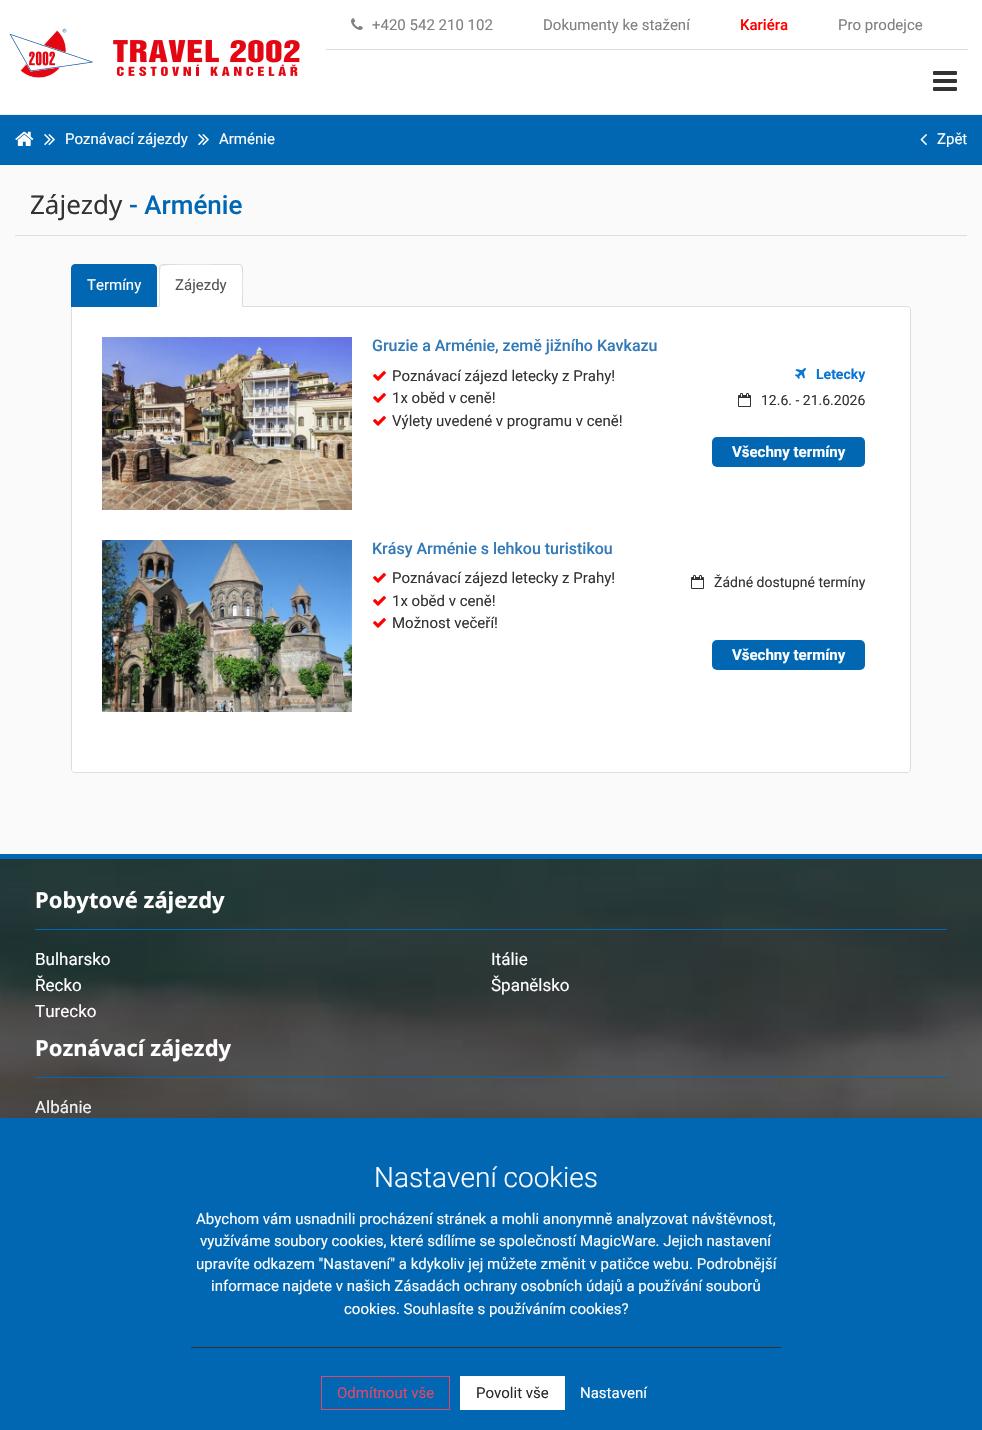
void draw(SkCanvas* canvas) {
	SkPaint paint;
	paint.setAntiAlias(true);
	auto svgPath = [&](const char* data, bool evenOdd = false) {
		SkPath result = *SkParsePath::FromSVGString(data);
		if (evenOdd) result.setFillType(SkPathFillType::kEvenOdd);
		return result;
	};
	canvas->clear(0xffffffff);
	paint.setColor(0xffdddddd);
	canvas->drawRect(SkRect::MakeXYWH(326, 49, 642, 1), paint);
	canvas->drawImageRect(SkImages::DeferredFromEncodedData(SkData::MakeFromFileName("img1.png")), SkRect::MakeXYWH(351, 18, 12, 12), SkSamplingOptions());
	SkFont f1(fontMgr->matchFamilyStyle("Roboto", SkFontStyle::Normal()), 15);
	f1.setSubpixel(true);
	paint.setColor(0xff808080);
	canvas->drawString("+420 542 210 102", 372, 30, f1, paint);
	canvas->drawString("Dokumenty ke stažení", 543, 30, f1, paint);
	SkFont f2(fontMgr->matchFamilyStyle("Roboto", SkFontStyle(500, SkFontStyle::kNormal_Width, SkFontStyle::kUpright_Slant)), 15);
	f2.setSubpixel(true);
	paint.setColor(0xffff0000);
	canvas->drawString("Kariéra", 740, 30, f2, paint);
	paint.setColor(0xff808080);
	canvas->drawString("Pro prodejce", 838, 30, f1, paint);
	canvas->drawImageRect(SkImages::DeferredFromEncodedData(SkData::MakeFromFileName("img2.png")), SkRect::MakeXYWH(9, 28, 291, 50), SkSamplingOptions());
	paint.setColor(0xffebebeb);
	canvas->drawRect(SkRect::MakeXYWH(0, 114, 982, 1), paint);
	canvas->drawImageRect(SkImages::DeferredFromEncodedData(SkData::MakeFromFileName("img3.png")), SkRect::MakeXYWH(933, 71, 24, 20), SkSamplingOptions());
	paint.setColor(0xfffafafa);
	canvas->drawRect(SkRect::MakeXYWH(0, 165, 982, 689), paint);
	paint.setColor(0xff0167b2);
	canvas->drawRect(SkRect::MakeXYWH(0, 115, 982, 50), paint);
	canvas->drawImageRect(SkImages::DeferredFromEncodedData(SkData::MakeFromFileName("img4.png")), SkRect::MakeXYWH(15, 131, 19, 15), SkSamplingOptions());
	canvas->drawImageRect(SkImages::DeferredFromEncodedData(SkData::MakeFromFileName("img5.png")), SkRect::MakeXYWH(44, 134, 11, 12), SkSamplingOptions());
	paint.setColor(0xffffffff);
	canvas->drawString("Poznávací zájezdy", 65, 144, f1, paint);
	canvas->drawImageRect(SkImages::DeferredFromEncodedData(SkData::MakeFromFileName("img5.png")), SkRect::MakeXYWH(198, 134, 11, 12), SkSamplingOptions());
	canvas->drawString("Arménie", 219, 144, f1, paint);
	canvas->drawImageRect(SkImages::DeferredFromEncodedData(SkData::MakeFromFileName("img6.png")), SkRect::MakeXYWH(920, 134, 7, 12), SkSamplingOptions());
	canvas->drawString("Zpět", 937, 144, f1, paint);
	paint.setColor(0xffdedede);
	canvas->drawRect(SkRect::MakeXYWH(15, 235, 952, 1), paint);
	SkFont f3(fontMgr->matchFamilyStyle("Noto Sans", SkFontStyle::Normal()), 26);
	f3.setSubpixel(true);
	paint.setColor(0xff333333);
	canvas->drawString("Zájezdy", 30, 214, f3, paint);
	SkFont f4(fontMgr->matchFamilyStyle("Roboto", SkFontStyle(500, SkFontStyle::kNormal_Width, SkFontStyle::kUpright_Slant)), 26);
	f4.setSubpixel(true);
	paint.setColor(0xff0167b2);
	canvas->drawString("- Arménie", 129, 214, f4, paint);
	paint.setColor(0xffffffff);
	canvas->drawPath(svgPath("M71.5 306.5H907C909 306.5 910.5 308 910.5 310V769C910.5 771 909 772.5 907 772.5H75C73 772.5 71.5 771 71.5 769Z"), paint);
	paint.setStroke(true);
	paint.setStrokeWidth(1);
	paint.setColor(0xffdddddd);
	canvas->drawPath(svgPath("M71.5 306.5H907C909 306.5 910.5 308 910.5 310V769C910.5 771 909 772.5 907 772.5H75C73 772.5 71.5 771 71.5 769Z"), paint);
	paint.setStroke(false);
	paint.setColor(0xff0167b2);
	canvas->drawPath(svgPath("M75 264H153C155 264 157 266 157 268V307H71V268C71 266 73 264 75 264Z"), paint);
	paint.setColor(0xffffffff);
	canvas->drawString("Termíny", 87, 290, f1, paint);
	canvas->drawPath(svgPath("M163 264H239C241 264 243 266 243 268V307H159V268C159 266 161 264 163 264Z"), paint);
	paint.setColor(0xffdddddd);
	canvas->drawPath(svgPath("M163 264L160 265L161 266C163 264 219 265 226 265H239L241 266L242 265L239 264Z"), paint);
	canvas->drawPath(svgPath("M243 307V268C243 267 242 266 242 265L241 266C243 268 242 301 242 306Z"), paint);
	canvas->drawPath(svgPath("M159 307L160 306C160 301 159 268 161 266L160 265L159 268Z"), paint);
	paint.setColor(0xff555555);
	canvas->drawString("Zájezdy", 175, 290, f1, paint);
	canvas->drawImageRect(SkImages::DeferredFromEncodedData(SkData::MakeFromFileName("img7.png")), SkRect::MakeXYWH(102, 337, 250, 173), SkSamplingOptions());
	SkFont f5(fontMgr->matchFamilyStyle("Roboto", SkFontStyle(500, SkFontStyle::kNormal_Width, SkFontStyle::kUpright_Slant)), 16);
	f5.setSubpixel(true);
	paint.setColor(0xff337ab7);
	canvas->drawString("Gruzie a Arménie, země jižního Kavkazu", 372, 351, f5, paint);
	canvas->drawImageRect(SkImages::DeferredFromEncodedData(SkData::MakeFromFileName("img8.png")), SkRect::MakeXYWH(373, 371, 13, 10), SkSamplingOptions());
	paint.setColor(0xff333333);
	canvas->drawString("Poznávací zájezd letecky z Prahy!", 392, 381, f1, paint);
	canvas->drawImageRect(SkImages::DeferredFromEncodedData(SkData::MakeFromFileName("img8.png")), SkRect::MakeXYWH(373, 393, 13, 10), SkSamplingOptions());
	canvas->drawString("1x oběd v ceně!", 392, 403, f1, paint);
	canvas->drawImageRect(SkImages::DeferredFromEncodedData(SkData::MakeFromFileName("img8.png")), SkRect::MakeXYWH(373, 416, 13, 10), SkSamplingOptions());
	canvas->drawString("Výlety uvedené v programu v ceně!", 392, 426, f1, paint);
	canvas->drawImageRect(SkImages::DeferredFromEncodedData(SkData::MakeFromFileName("img9.png")), SkRect::MakeXYWH(795, 368, 11, 11), SkSamplingOptions());
	SkFont f6(fontMgr->matchFamilyStyle("Roboto", SkFontStyle::Bold()), 14);
	f6.setSubpixel(true);
	paint.setColor(0xff0c76d2);
	canvas->drawString("Letecky", 816, 379, f6, paint);
	canvas->drawImageRect(SkImages::DeferredFromEncodedData(SkData::MakeFromFileName("img10.png")), SkRect::MakeXYWH(738, 393, 13, 14), SkSamplingOptions());
	SkFont f7(fontMgr->matchFamilyStyle("Roboto", SkFontStyle::Normal()), 14);
	f7.setSubpixel(true);
	paint.setColor(0xff333333);
	canvas->drawString("12.6. - 21.6.2026", 761, 405, f7, paint);
	paint.setColor(0xff0167b2);
	canvas->drawRoundRect(SkRect::MakeXYWH(712, 437, 153, 30), 5, 5, paint);
	SkFont f8(fontMgr->matchFamilyStyle("Roboto", SkFontStyle::Bold()), 15);
	f8.setSubpixel(true);
	paint.setColor(0xffffffff);
	canvas->drawString("Všechny termíny", 732, 457, f8, paint);
	canvas->drawImageRect(SkImages::DeferredFromEncodedData(SkData::MakeFromFileName("img11.png")), SkRect::MakeXYWH(102, 540, 250, 172), SkSamplingOptions());
	paint.setColor(0xff337ab7);
	canvas->drawString("Krásy Arménie s lehkou turistikou", 372, 554, f5, paint);
	canvas->drawImageRect(SkImages::DeferredFromEncodedData(SkData::MakeFromFileName("img8.png")), SkRect::MakeXYWH(373, 573, 13, 10), SkSamplingOptions());
	paint.setColor(0xff333333);
	canvas->drawString("Poznávací zájezd letecky z Prahy!", 392, 583, f1, paint);
	canvas->drawImageRect(SkImages::DeferredFromEncodedData(SkData::MakeFromFileName("img8.png")), SkRect::MakeXYWH(373, 596, 13, 10), SkSamplingOptions());
	canvas->drawString("1x oběd v ceně!", 392, 606, f1, paint);
	canvas->drawImageRect(SkImages::DeferredFromEncodedData(SkData::MakeFromFileName("img8.png")), SkRect::MakeXYWH(373, 618, 13, 10), SkSamplingOptions());
	canvas->drawString("Možnost večeří!", 392, 628, f1, paint);
	canvas->drawImageRect(SkImages::DeferredFromEncodedData(SkData::MakeFromFileName("img10.png")), SkRect::MakeXYWH(691, 575, 13, 14), SkSamplingOptions());
	canvas->drawString("Žádné dostupné termíny", 714, 587, f7, paint);
	paint.setColor(0xff0167b2);
	canvas->drawRoundRect(SkRect::MakeXYWH(712, 640, 153, 30), 5, 5, paint);
	paint.setColor(0xffffffff);
	canvas->drawString("Všechny termíny", 732, 660, f8, paint);
	canvas->drawImageRect(SkImages::DeferredFromEncodedData(SkData::MakeFromFileName("img12.png")), SkRect::MakeXYWH(0, 859, 982, 259), SkSamplingOptions());
	paint.setColor(0xff0167b2);
	canvas->drawRect(SkRect::MakeXYWH(0, 854, 982, 5), paint);
	canvas->drawRect(SkRect::MakeXYWH(35, 929, 912, 1), paint);
	SkFont f9(fontMgr->matchFamilyStyle("Noto Sans", SkFontStyle::Bold()), 22);
	f9.setSubpixel(true);
	paint.setColor(0xffffffff);
	canvas->drawString("Pobytové zájezdy", 35, 908, f9, paint);
	SkFont f10(fontMgr->matchFamilyStyle("Roboto", SkFontStyle::Normal()), 17);
	f10.setSubpixel(true);
	canvas->drawString("Bulharsko", 35, 965, f10, paint);
	canvas->drawString("Itálie", 491, 965, f10, paint);
	canvas->drawString("Řecko", 35, 991, f10, paint);
	canvas->drawString("Španělsko", 491, 991, f10, paint);
	canvas->drawString("Turecko", 35, 1017, f10, paint);
	paint.setColor(0xff0167b2);
	canvas->drawRect(SkRect::MakeXYWH(35, 1077, 912, 1), paint);
	paint.setColor(0xffffffff);
	canvas->drawString("Poznávací zájezdy", 35, 1056, f9, paint);
	canvas->drawString("Albánie", 35, 1113, f10, paint);
	paint.setColor(0x33000000);
	paint.setMaskFilter(SkMaskFilter::MakeBlur(kNormal_SkBlurStyle, 12.5));
	canvas->drawRect(SkRect::MakeXYWH(0, 1118, 982, 312), paint);
	paint.setMaskFilter(nullptr);
	paint.setColor(0xff0167b2);
	canvas->drawRect(SkRect::MakeXYWH(0, 1118, 982, 312), paint);
	SkFont f11(fontMgr->matchFamilyStyle("Roboto", SkFontStyle(300, SkFontStyle::kNormal_Width, SkFontStyle::kUpright_Slant)), 28);
	f11.setSubpixel(true);
	paint.setColor(0xffffffff);
	canvas->drawString("Nastavení cookies", 374, 1187, f11, paint);
	canvas->drawString("Abychom vám usnadnili procházení stránek a mohli anonymně analyzovat návštěvnost,", 196, 1224, f1, paint);
	canvas->drawString("využíváme soubory cookies, které sdílíme se společností MagicWare. Jejich nastavení", 200, 1246, f1, paint);
	canvas->drawString("upravíte odkazem \"Nastavení\" a kdykoliv jej můžete změnit v patičce webu. Podrobnější", 196, 1269, f1, paint);
	canvas->drawString("informace najdete v našich Zásadách ochrany osobních údajů a používání souborů", 211, 1291, f1, paint);
	canvas->drawString("cookies. Souhlasíte s používáním cookies?", 344, 1314, f1, paint);
	paint.setColor(0xff333333);
	canvas->drawRect(SkRect::MakeXYWH(191, 1347, 590, 1), paint);
	paint.setStroke(true);
	paint.setColor(0xffdf4867);
	canvas->drawRect(SkRect::MakeXYWH(321.5, 1376.5, 128, 33), paint);
	paint.setStroke(false);
	canvas->drawString("Odmítnout vše", 337, 1398, f1, paint);
	paint.setColor(0xffffffff);
	canvas->drawRect(SkRect::MakeXYWH(460, 1376, 105, 34), paint);
	paint.setColor(0xff282a2d);
	canvas->drawString("Povolit vše", 476, 1398, f1, paint);
	paint.setColor(0xffffffff);
	canvas->drawString("Nastavení", 580, 1398, f1, paint);
}
